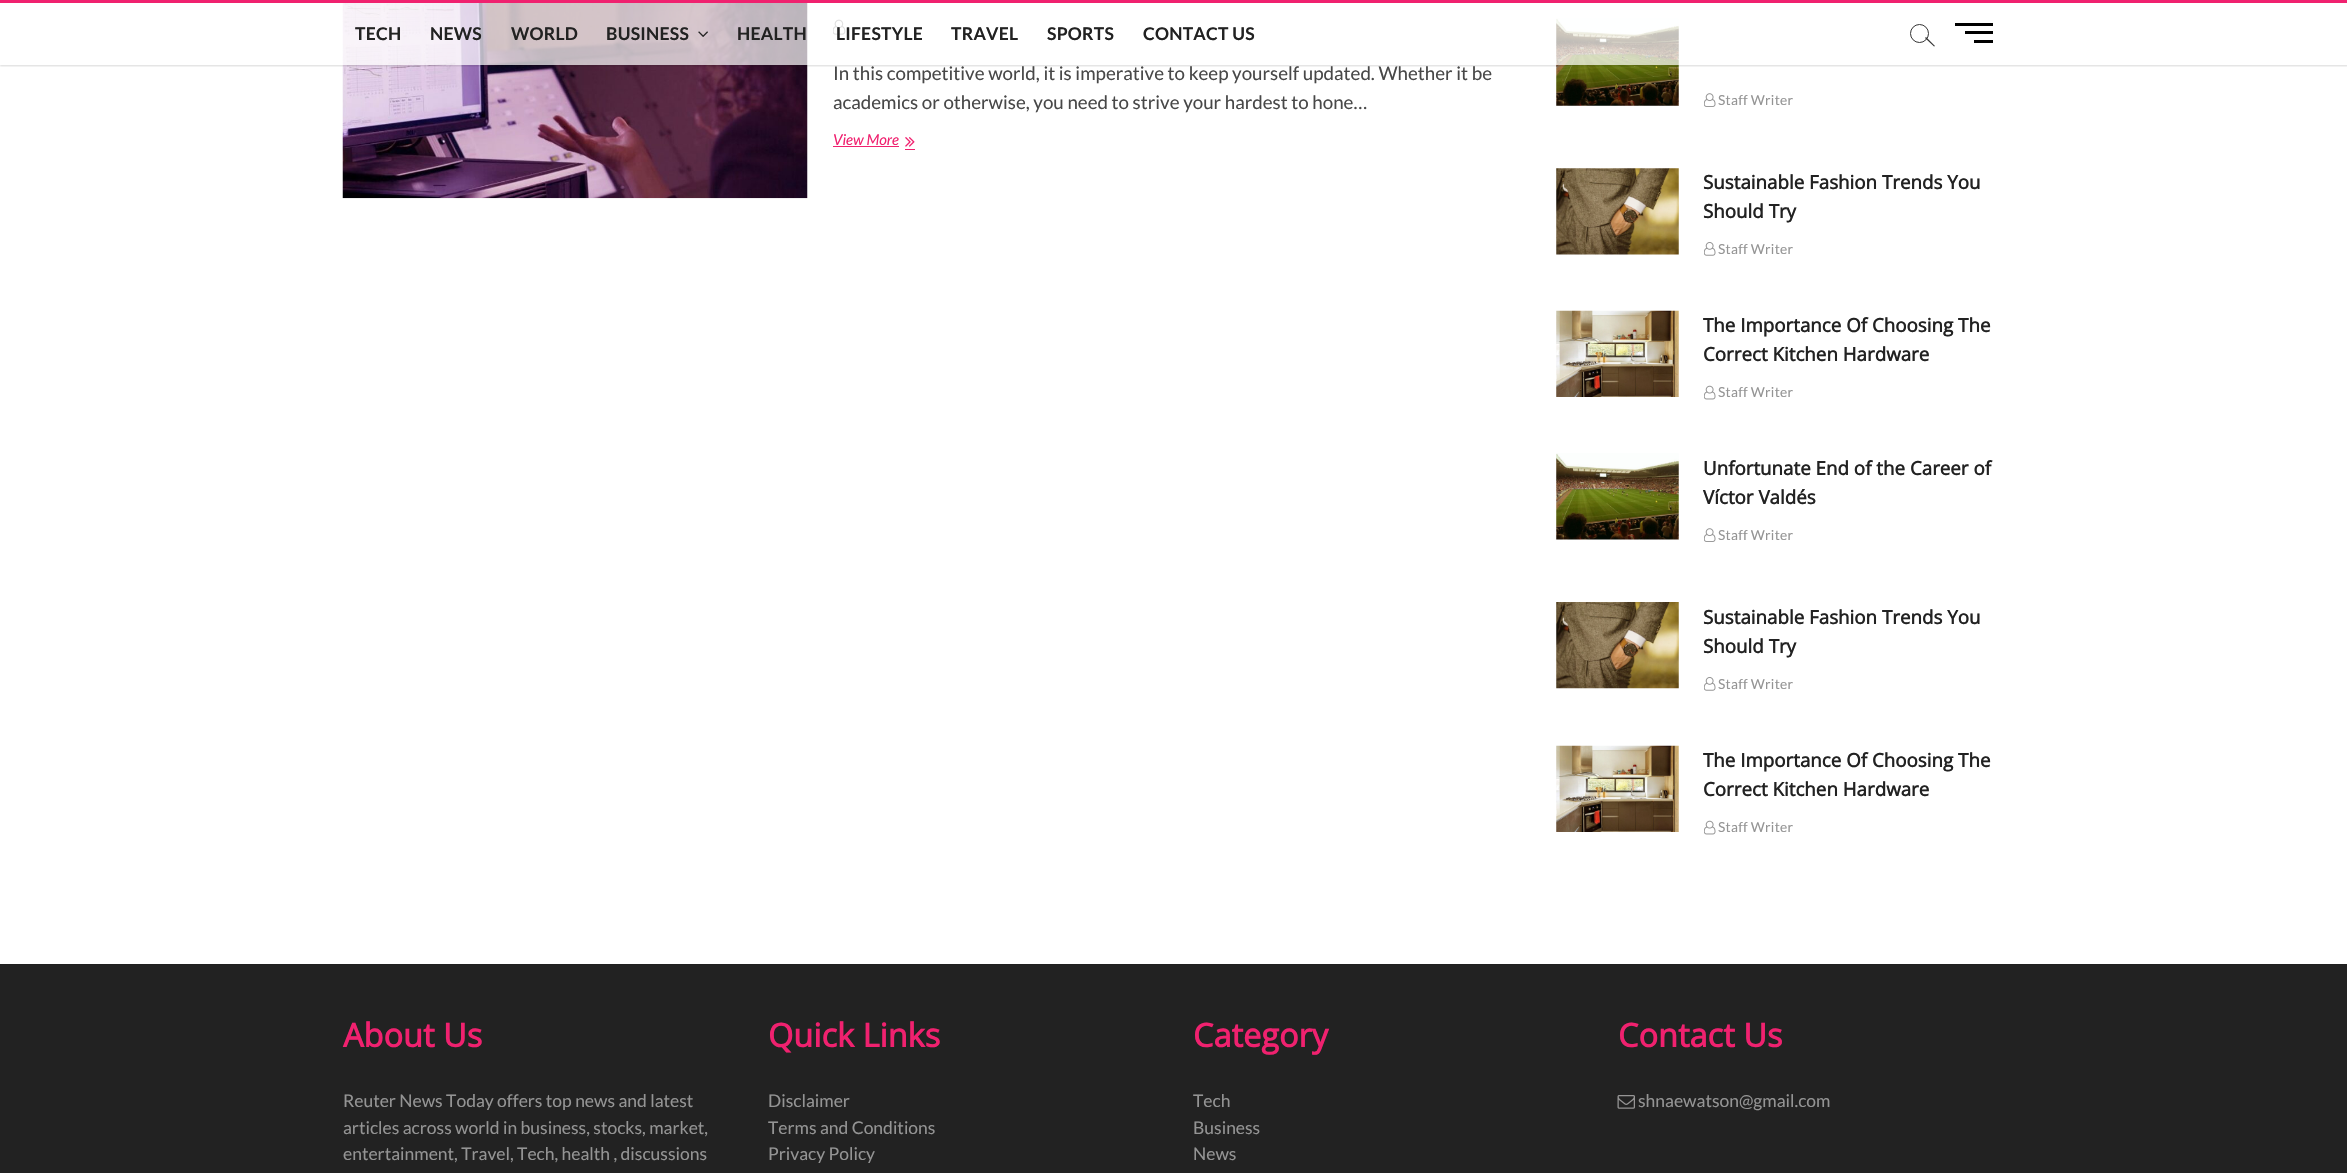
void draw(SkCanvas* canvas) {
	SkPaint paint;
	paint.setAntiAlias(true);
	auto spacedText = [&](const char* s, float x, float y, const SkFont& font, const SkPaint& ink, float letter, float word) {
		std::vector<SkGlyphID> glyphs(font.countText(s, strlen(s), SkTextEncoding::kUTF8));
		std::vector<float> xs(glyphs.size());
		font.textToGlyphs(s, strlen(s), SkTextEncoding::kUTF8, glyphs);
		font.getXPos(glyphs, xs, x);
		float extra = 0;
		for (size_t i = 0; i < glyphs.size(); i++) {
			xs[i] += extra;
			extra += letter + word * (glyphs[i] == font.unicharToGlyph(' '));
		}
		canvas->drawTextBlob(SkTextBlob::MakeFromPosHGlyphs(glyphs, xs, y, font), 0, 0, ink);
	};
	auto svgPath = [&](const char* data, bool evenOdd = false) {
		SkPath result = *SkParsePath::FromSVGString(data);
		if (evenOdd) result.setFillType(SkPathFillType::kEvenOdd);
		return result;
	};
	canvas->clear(0xffffffff);
	canvas->drawImageRect(SkImages::DeferredFromEncodedData(SkData::MakeFromFileName("img2.png")), SkRect::MakeXYWH(342, 3, 466, 196), SkSamplingOptions());
	canvas->drawImageRect(SkImages::DeferredFromEncodedData(SkData::MakeFromFileName("img3.png")), SkRect::MakeXYWH(833, 19, 13, 16), SkSamplingOptions());
	canvas->drawImageRect(SkImages::DeferredFromEncodedData(SkData::MakeFromFileName("img5.png")), SkRect::MakeXYWH(1556, 18, 123, 88), SkSamplingOptions());
	canvas->save();
	canvas->clipRect(SkRect::MakeXYWH(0, 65, 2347, 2));
	paint.setColor(0x26000000);
	paint.setMaskFilter(SkMaskFilter::MakeBlur(kNormal_SkBlurStyle, 1));
	canvas->drawRect(SkRect::MakeXYWH(0, 1, 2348, 65), paint);
	paint.setMaskFilter(nullptr);
	canvas->restore();
	paint.setColor(0xb3ffffff);
	canvas->drawRect(SkRect::MakeXYWH(342, 3, 1337, 62), paint);
	paint.setColor(0xfff0216f);
	canvas->drawRect(SkRect::MakeXYWH(0, 0, 2347, 3), paint);
	SkFont f1(fontMgr->matchFamilyStyle("Lato", SkFontStyle::Bold()), 17.5);
	f1.setSubpixel(true);
	paint.setColor(0xff222222);
	spacedText("TECH", 355, 40, f1, paint, 0.25, 0);
	spacedText("NEWS", 430, 40, f1, paint, 0.25, 0);
	spacedText("WORLD", 511, 40, f1, paint, 0.25, 0);
	spacedText("BUSINESS", 606, 40, f1, paint, 0.25, 0);
	canvas->drawImageRect(SkImages::DeferredFromEncodedData(SkData::MakeFromFileName("img1.png")), SkRect::MakeXYWH(698, 31, 10, 6), SkSamplingOptions());
	spacedText("HEALTH", 737, 40, f1, paint, 0.25, 0);
	spacedText("LIFESTYLE", 836, 40, f1, paint, 0.25, 0);
	spacedText("TRAVEL", 951, 40, f1, paint, 0.25, 0);
	spacedText("SPORTS", 1047, 40, f1, paint, 0.25, 0);
	spacedText("CONTACT US", 1143, 40, f1, paint, 0.25, 0);
	paint.setStroke(true);
	paint.setStrokeWidth(1);
	paint.setColor(0xff333333);
	canvas->drawCircle(1919.5, 33.5, 9, paint);
	paint.setStroke(false);
	canvas->drawPath(svgPath("M1925 38L1926 37L1935 46L1934 46.5Z"), paint);
	paint.setColor(0xff000000);
	canvas->drawRect(SkRect::MakeXYWH(1965, 31, 28, 3), paint);
	canvas->drawRect(SkRect::MakeXYWH(1955, 23, 38, 3), paint);
	canvas->drawRect(SkRect::MakeXYWH(1974, 40, 19, 3), paint);
	SkFont f2(fontMgr->matchFamilyStyle("Lato", SkFontStyle::Normal()), 18.75);
	f2.setSubpixel(true);
	paint.setColor(0xff484848);
	canvas->drawString("In this competitive world, it is imperative to keep yourself updated. Whether it be", 833, 80, f2, paint);
	canvas->drawString("academics or otherwise, you need to strive your hardest to hone…", 833, 109, f2, paint);
	SkFont f3(fontMgr->matchFamilyStyle("Lato", SkFontStyle::Italic()), 15);
	f3.setSubpixel(true);
	paint.setColor(0xfff0216f);
	canvas->drawString("View More", 833, 145, f3, paint);
	canvas->drawRect(SkRect::MakeXYWH(833, 146, 66, 1), paint);
	canvas->drawImageRect(SkImages::DeferredFromEncodedData(SkData::MakeFromFileName("img4.png")), SkRect::MakeXYWH(905, 137, 10, 10), SkSamplingOptions());
	canvas->drawRect(SkRect::MakeXYWH(905, 149, 10, 1), paint);
	canvas->drawImageRect(SkImages::DeferredFromEncodedData(SkData::MakeFromFileName("img6.png")), SkRect::MakeXYWH(1704, 93, 12, 14), SkSamplingOptions());
	SkFont f4(fontMgr->matchFamilyStyle("Lato", SkFontStyle::Normal()), 13.75);
	f4.setSubpixel(true);
	paint.setColor(0xff949494);
	spacedText("Staff Writer", 1718, 105, f4, paint, 0.25, 0);
	canvas->drawImageRect(SkImages::DeferredFromEncodedData(SkData::MakeFromFileName("img7.png")), SkRect::MakeXYWH(1556, 168, 123, 87), SkSamplingOptions());
	SkFont f5(fontMgr->matchFamilyStyle("Open Sans", SkFontStyle::Bold()), 18.75);
	f5.setSubpixel(true);
	paint.setColor(0xff222222);
	canvas->drawString("Sustainable Fashion Trends You", 1703, 189, f5, paint);
	canvas->drawString("Should Try", 1703, 218, f5, paint);
	canvas->drawImageRect(SkImages::DeferredFromEncodedData(SkData::MakeFromFileName("img8.png")), SkRect::MakeXYWH(1704, 242, 12, 14), SkSamplingOptions());
	paint.setColor(0xff949494);
	spacedText("Staff Writer", 1718, 254, f4, paint, 0.25, 0);
	canvas->drawImageRect(SkImages::DeferredFromEncodedData(SkData::MakeFromFileName("img9.png")), SkRect::MakeXYWH(1556, 310, 123, 87), SkSamplingOptions());
	paint.setColor(0xff222222);
	canvas->drawString("The Importance Of Choosing The", 1703, 332, f5, paint);
	canvas->drawString("Correct Kitchen Hardware", 1703, 361, f5, paint);
	canvas->drawImageRect(SkImages::DeferredFromEncodedData(SkData::MakeFromFileName("img10.png")), SkRect::MakeXYWH(1704, 385, 12, 15), SkSamplingOptions());
	paint.setColor(0xff949494);
	spacedText("Staff Writer", 1718, 397, f4, paint, 0.25, 0);
	canvas->drawImageRect(SkImages::DeferredFromEncodedData(SkData::MakeFromFileName("img11.png")), SkRect::MakeXYWH(1556, 453, 123, 87), SkSamplingOptions());
	paint.setColor(0xff222222);
	canvas->drawString("Unfortunate End of the Career of", 1703, 475, f5, paint);
	canvas->drawString("Víctor Valdés", 1703, 504, f5, paint);
	canvas->drawImageRect(SkImages::DeferredFromEncodedData(SkData::MakeFromFileName("img6.png")), SkRect::MakeXYWH(1704, 528, 12, 14), SkSamplingOptions());
	paint.setColor(0xff949494);
	spacedText("Staff Writer", 1718, 540, f4, paint, 0.25, 0);
	canvas->drawImageRect(SkImages::DeferredFromEncodedData(SkData::MakeFromFileName("img12.png")), SkRect::MakeXYWH(1556, 602, 123, 87), SkSamplingOptions());
	paint.setColor(0xff222222);
	canvas->drawString("Sustainable Fashion Trends You", 1703, 624, f5, paint);
	canvas->drawString("Should Try", 1703, 653, f5, paint);
	canvas->drawImageRect(SkImages::DeferredFromEncodedData(SkData::MakeFromFileName("img8.png")), SkRect::MakeXYWH(1704, 677, 12, 14), SkSamplingOptions());
	paint.setColor(0xff949494);
	spacedText("Staff Writer", 1718, 689, f4, paint, 0.25, 0);
	canvas->drawImageRect(SkImages::DeferredFromEncodedData(SkData::MakeFromFileName("img9.png")), SkRect::MakeXYWH(1556, 745, 123, 87), SkSamplingOptions());
	paint.setColor(0xff222222);
	canvas->drawString("The Importance Of Choosing The", 1703, 767, f5, paint);
	canvas->drawString("Correct Kitchen Hardware", 1703, 796, f5, paint);
	canvas->drawImageRect(SkImages::DeferredFromEncodedData(SkData::MakeFromFileName("img10.png")), SkRect::MakeXYWH(1704, 820, 12, 15), SkSamplingOptions());
	paint.setColor(0xff949494);
	spacedText("Staff Writer", 1718, 832, f4, paint, 0.25, 0);
	paint.setColor(0xff222222);
	canvas->drawRect(SkRect::MakeXYWH(0, 965, 2347, 208), paint);
	paint.setColor(0xff202020);
	canvas->drawRect(SkRect::MakeXYWH(0, 964, 2347, 1), paint);
	SkFont f6(fontMgr->matchFamilyStyle("Open Sans", SkFontStyle::Bold()), 32.5);
	f6.setSubpixel(true);
	paint.setColor(0xfff0216f);
	canvas->drawString("About Us", 343, 1047, f6, paint);
	SkFont f7(fontMgr->matchFamilyStyle("Lato", SkFontStyle::Normal()), 17.5);
	f7.setSubpixel(true);
	paint.setColor(0xff949494);
	canvas->drawString("Reuter News Today offers top news and latest", 343, 1107, f7, paint);
	canvas->drawString("articles across world in business, stocks, market,", 343, 1134, f7, paint);
	canvas->drawString("entertainment, Travel, Tech, health , discussions", 343, 1160, f7, paint);
	paint.setColor(0xfff0216f);
	canvas->drawString("Quick Links", 768, 1047, f6, paint);
	paint.setColor(0xff949494);
	canvas->drawString("Disclaimer", 768, 1107, f7, paint);
	canvas->drawString("Terms and Conditions", 768, 1134, f7, paint);
	canvas->drawString("Privacy Policy", 768, 1160, f7, paint);
	paint.setColor(0xfff0216f);
	canvas->drawString("Category", 1193, 1047, f6, paint);
	paint.setColor(0xff949494);
	canvas->drawString("Tech", 1193, 1107, f7, paint);
	canvas->drawString("Business", 1193, 1134, f7, paint);
	canvas->drawString("News", 1193, 1160, f7, paint);
	paint.setColor(0xfff0216f);
	canvas->drawString("Contact Us", 1618, 1047, f6, paint);
	canvas->drawImageRect(SkImages::DeferredFromEncodedData(SkData::MakeFromFileName("img13.png")), SkRect::MakeXYWH(1617, 1095, 18, 14), SkSamplingOptions());
	paint.setColor(0xff949494);
	canvas->drawString("shnaewatson@gmail.com", 1638, 1107, f7, paint);
}
